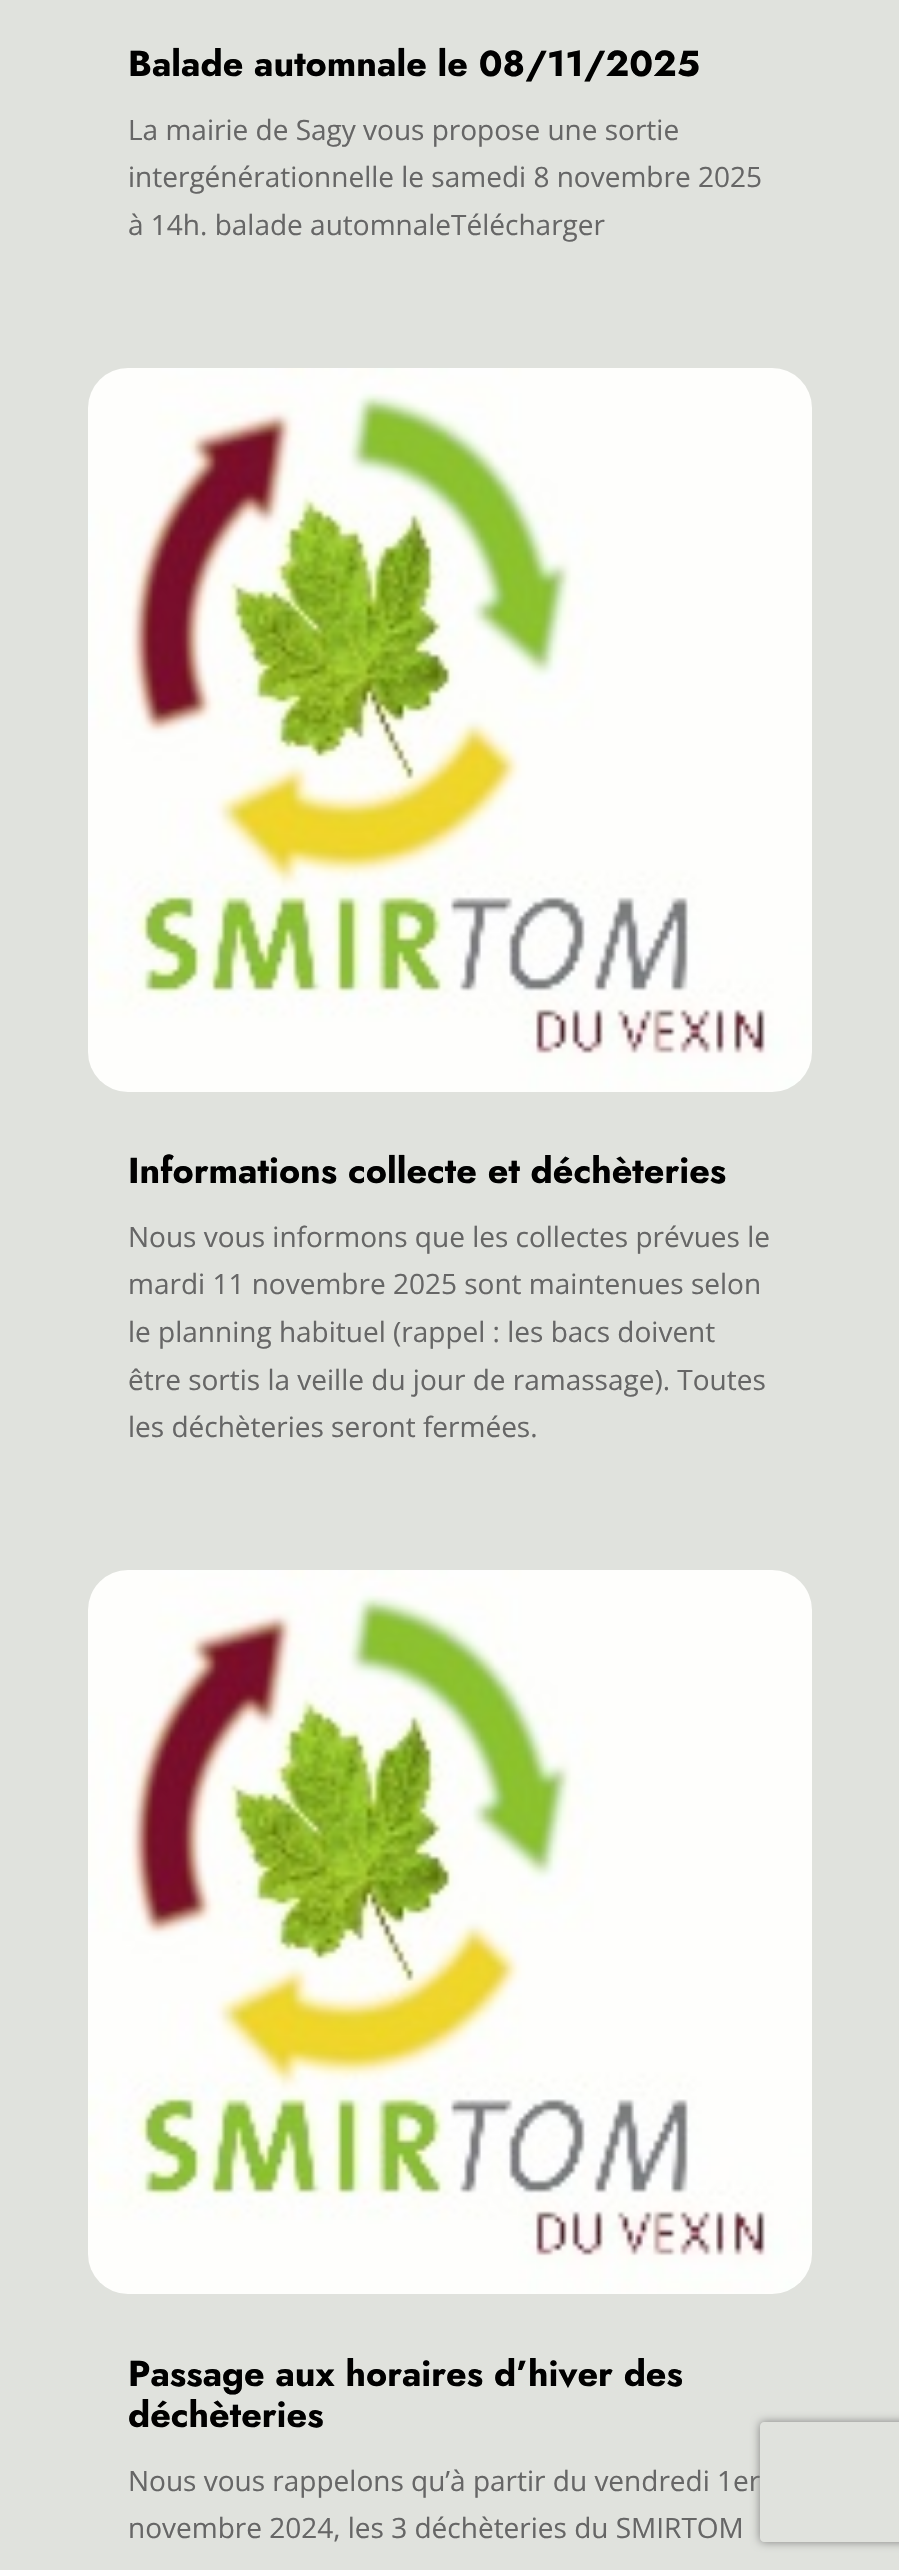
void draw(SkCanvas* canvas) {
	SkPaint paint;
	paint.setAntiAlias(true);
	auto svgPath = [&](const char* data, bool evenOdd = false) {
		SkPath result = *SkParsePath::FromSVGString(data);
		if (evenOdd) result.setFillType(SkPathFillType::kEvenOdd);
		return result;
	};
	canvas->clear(0xffe0e2dd);
	SkFont f1(fontMgr->matchFamilyStyle("Jost", SkFontStyle::Bold()), 36);
	f1.setSubpixel(true);
	paint.setColor(0xff000000);
	canvas->drawString("Balade automnale le 08/11/2025", 128, 76, f1, paint);
	SkFont f2(fontMgr->matchFamilyStyle("Open Sans", SkFontStyle::Normal()), 28);
	f2.setSubpixel(true);
	paint.setColor(0xff666666);
	canvas->drawString("La mairie de Sagy vous propose une sortie", 128, 140, f2, paint);
	canvas->drawString("intergénérationnelle le samedi 8 novembre 2025", 128, 187, f2, paint);
	canvas->drawString("à 14h. balade automnaleTélécharger", 128, 235, f2, paint);
	canvas->drawImageRect(SkImages::DeferredFromEncodedData(SkData::MakeFromFileName("img1.png")), SkRect::MakeXYWH(88, 368, 724, 724), SkSamplingOptions());
	paint.setColor(0xff000000);
	canvas->drawString("Informations collecte et déchèteries", 128, 1183, f1, paint);
	paint.setColor(0xff666666);
	canvas->drawString("Nous vous informons que les collectes prévues le", 128, 1247, f2, paint);
	canvas->drawString("mardi 11 novembre 2025 sont maintenues selon", 128, 1294, f2, paint);
	canvas->drawString("le planning habituel (rappel : les bacs doivent", 128, 1342, f2, paint);
	canvas->drawString("être sortis la veille du jour de ramassage). Toutes", 128, 1390, f2, paint);
	canvas->drawString("les déchèteries seront fermées.", 128, 1437, f2, paint);
	canvas->drawImageRect(SkImages::DeferredFromEncodedData(SkData::MakeFromFileName("img2.png")), SkRect::MakeXYWH(88, 1570, 724, 724), SkSamplingOptions());
	paint.setColor(0xff000000);
	canvas->drawString("Passage aux horaires d’hiver des", 128, 2386, f1, paint);
	canvas->drawString("déchèteries", 128, 2427, f1, paint);
	paint.setColor(0xff666666);
	canvas->drawString("Nous vous rappelons qu’à partir du vendredi 1er", 128, 2491, f2, paint);
	canvas->drawString("novembre 2024, les 3 déchèteries du SMIRTOM", 128, 2538, f2, paint);
	canvas->save();
	canvas->clipPath(svgPath("M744 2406H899V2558H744ZM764 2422H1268C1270 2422 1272 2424 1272 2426V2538C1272 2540 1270 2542 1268 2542H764C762 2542 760 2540 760 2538V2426C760 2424 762 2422 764 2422Z", true), true);
	paint.setColor(0xff808080);
	paint.setMaskFilter(SkMaskFilter::MakeBlur(kNormal_SkBlurStyle, 5));
	canvas->drawRoundRect(SkRect::MakeXYWH(760, 2422, 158, 120), 4, 4, paint);
	paint.setMaskFilter(nullptr);
	canvas->restore();
}
